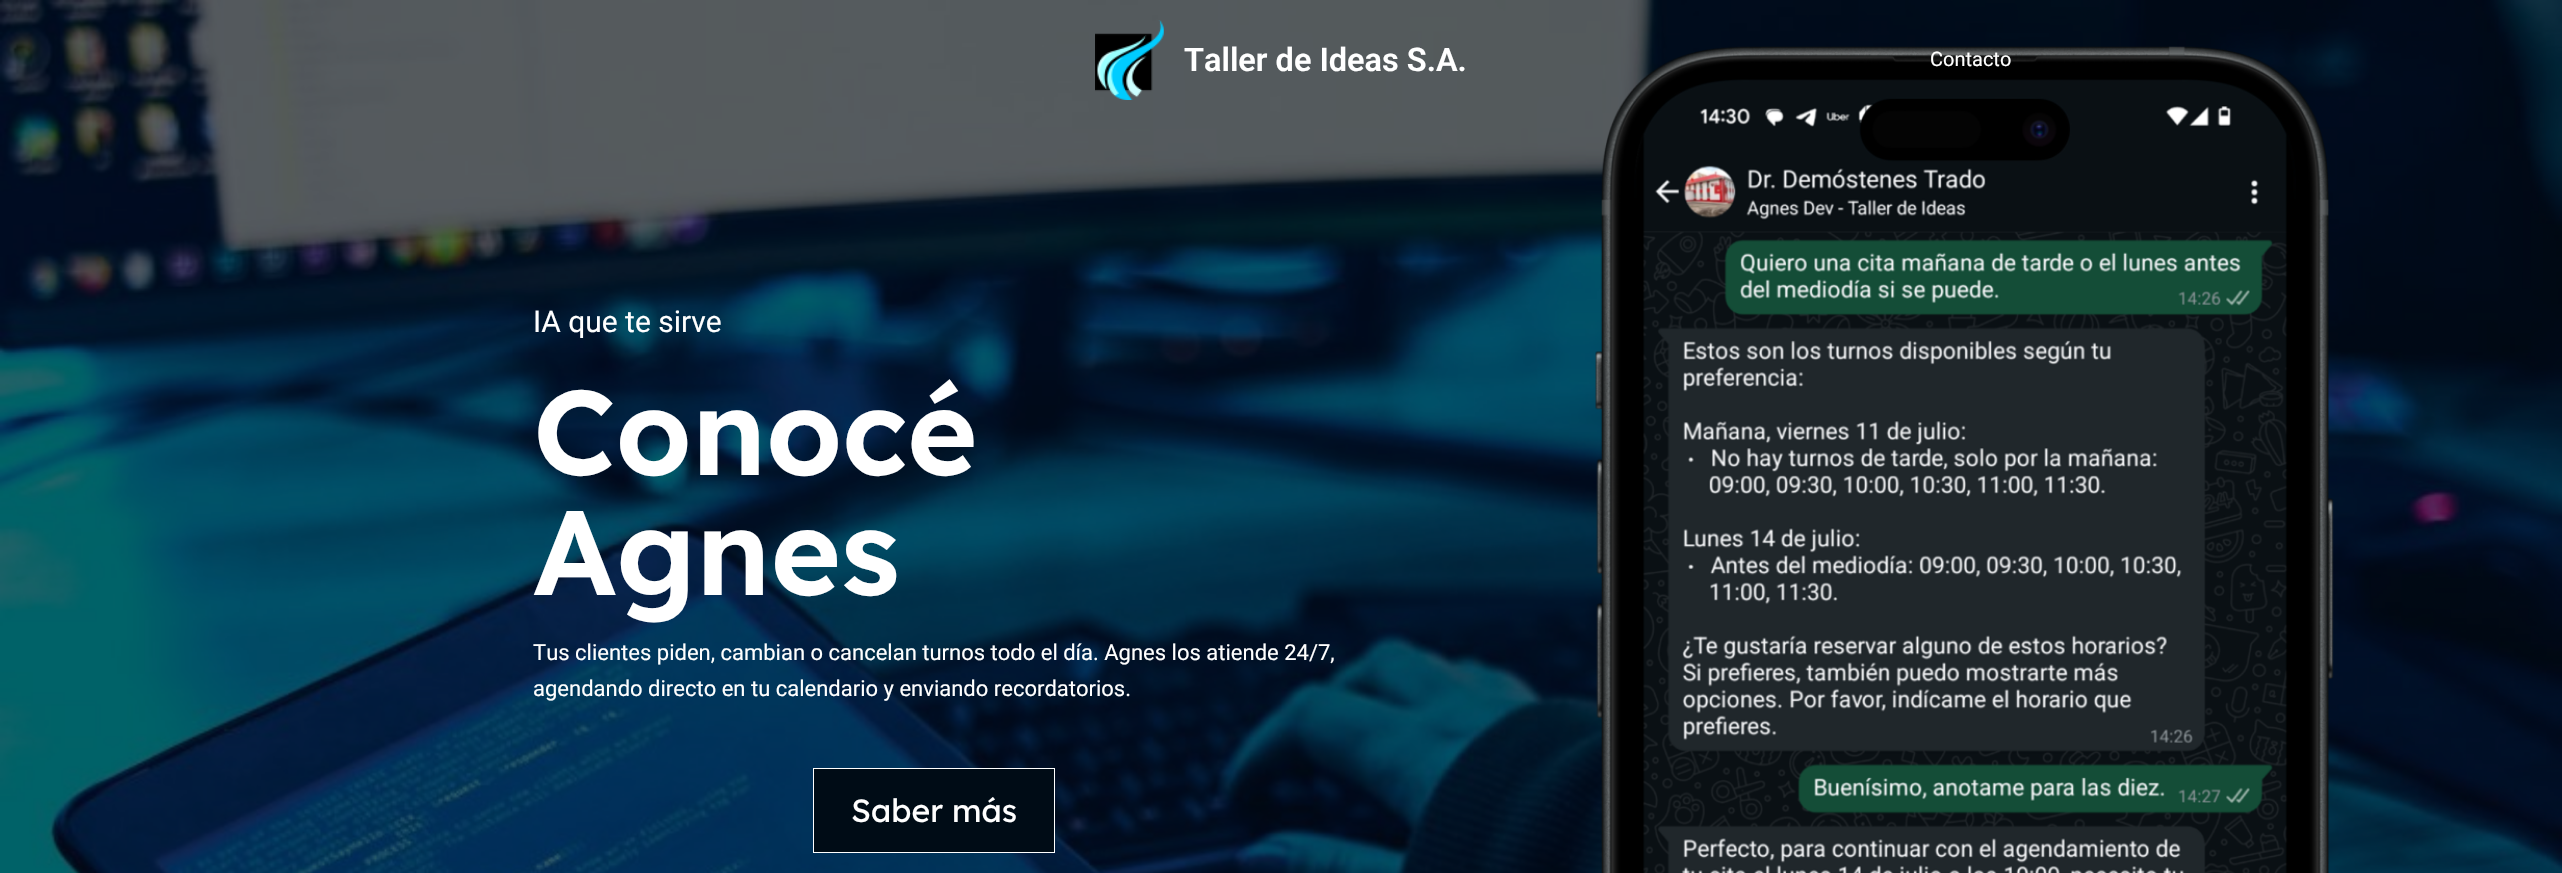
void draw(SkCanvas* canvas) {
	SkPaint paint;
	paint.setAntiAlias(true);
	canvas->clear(0xffffffff);
	canvas->drawImageRect(SkImages::DeferredFromEncodedData(SkData::MakeFromFileName("img2.png")), SkRect::MakeXYWH(0, 0, 2562, 873), SkSamplingOptions());
	canvas->drawImageRect(SkImages::DeferredFromEncodedData(SkData::MakeFromFileName("img1.png")), SkRect::MakeXYWH(1095, 20, 69, 80), SkSamplingOptions());
	SkFont f1(fontMgr->matchFamilyStyle("Roboto", SkFontStyle(600, SkFontStyle::kNormal_Width, SkFontStyle::kUpright_Slant)), 32.5);
	f1.setSubpixel(true);
	paint.setColor(0xffffffff);
	canvas->drawString("Taller de Ideas S.A.", 1184, 71, f1, paint);
	canvas->drawImageRect(SkImages::DeferredFromEncodedData(SkData::MakeFromFileName("img3.png")), SkRect::MakeXYWH(1595, 46, 739, 827), SkSamplingOptions());
	SkFont f2(fontMgr->matchFamilyStyle("Roboto", SkFontStyle::Normal()), 20);
	f2.setSubpixel(true);
	canvas->drawString("Contacto", 1930, 66, f2, paint);
	SkFont f3(fontMgr->matchFamilyStyle("Roboto", SkFontStyle::Normal()), 30);
	f3.setSubpixel(true);
	canvas->drawString("IA que te sirve", 533, 332, f3, paint);
	SkFont f4(fontMgr->matchFamilyStyle("Lexend", SkFontStyle(600, SkFontStyle::kNormal_Width, SkFontStyle::kUpright_Slant)), 120);
	f4.setSubpixel(true);
	canvas->drawString("Conocé", 533, 475, f4, paint);
	canvas->drawString("Agnes", 533, 595, f4, paint);
	SkFont f5(fontMgr->matchFamilyStyle("Roboto", SkFontStyle::Normal()), 22);
	f5.setSubpixel(true);
	canvas->drawString("Tus clientes piden, cambian o cancelan turnos todo el día. Agnes los atiende 24/7,", 533, 660, f5, paint);
	canvas->drawString("agendando directo en tu calendario y enviando recordatorios.", 533, 696, f5, paint);
	paint.setColor(0xff000c16);
	canvas->drawRect(SkRect::MakeXYWH(813.5, 768.5, 241, 84), paint);
	paint.setStroke(true);
	paint.setStrokeWidth(1);
	paint.setColor(0xffffffff);
	canvas->drawRect(SkRect::MakeXYWH(813.5, 768.5, 241, 84), paint);
	SkFont f6(fontMgr->matchFamilyStyle("Lexend", SkFontStyle::Normal()), 32);
	f6.setSubpixel(true);
	paint.setStroke(false);
	canvas->drawString("Saber más", 851, 822, f6, paint);
}
